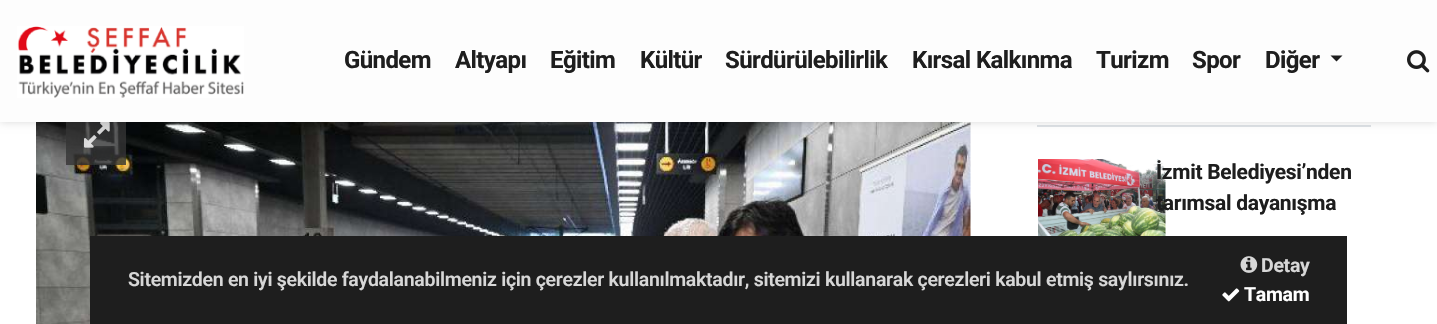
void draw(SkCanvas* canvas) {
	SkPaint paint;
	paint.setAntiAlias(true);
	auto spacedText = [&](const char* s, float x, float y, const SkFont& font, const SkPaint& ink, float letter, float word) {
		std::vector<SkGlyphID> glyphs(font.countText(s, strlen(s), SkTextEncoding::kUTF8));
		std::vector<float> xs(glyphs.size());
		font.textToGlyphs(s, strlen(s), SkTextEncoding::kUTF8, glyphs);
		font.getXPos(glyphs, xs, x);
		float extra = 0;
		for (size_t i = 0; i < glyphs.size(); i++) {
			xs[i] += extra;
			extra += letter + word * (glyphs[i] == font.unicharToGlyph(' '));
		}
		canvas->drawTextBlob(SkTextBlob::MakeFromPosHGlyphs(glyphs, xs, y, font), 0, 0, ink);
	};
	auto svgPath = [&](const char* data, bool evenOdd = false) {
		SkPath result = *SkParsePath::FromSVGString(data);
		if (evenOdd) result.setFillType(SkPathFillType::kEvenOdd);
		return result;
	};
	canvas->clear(0xffffffff);
	canvas->drawImageRect(SkImages::DeferredFromEncodedData(SkData::MakeFromFileName("img3.png")), SkRect::MakeXYWH(36, 122, 935, 202), SkSamplingOptions());
	paint.setColor(0xcc333333);
	canvas->drawRect(SkRect::MakeXYWH(66, 122, 60, 43), paint);
	canvas->drawImageRect(SkImages::DeferredFromEncodedData(SkData::MakeFromFileName("img4.png")), SkRect::MakeXYWH(84, 122, 26, 26), SkSamplingOptions());
	paint.setColor(0xffdee2e6);
	canvas->drawRect(SkRect::MakeXYWH(1037, 125, 334, 2), paint);
	paint.setColor(0x26000000);
	paint.setMaskFilter(SkMaskFilter::MakeBlur(kNormal_SkBlurStyle, 4));
	canvas->drawRect(SkRect::MakeXYWH(0, 0, 1437, 122), paint);
	paint.setMaskFilter(nullptr);
	paint.setColor(0xfffdfdfd);
	canvas->drawRect(SkRect::MakeXYWH(0, 0, 1437, 122), paint);
	canvas->drawImageRect(SkImages::DeferredFromEncodedData(SkData::MakeFromFileName("img1.png")), SkRect::MakeXYWH(17, 26, 227, 72), SkSamplingOptions());
	SkFont f1(fontMgr->matchFamilyStyle("Roboto", SkFontStyle::Bold()), 24);
	f1.setSubpixel(true);
	paint.setColor(0xff1e1e1e);
	spacedText("Gündem", 344, 68, f1, paint, -0.6, 0);
	spacedText("Altyapı", 455, 68, f1, paint, -0.6, 0);
	spacedText("Eğitim", 550, 68, f1, paint, -0.6, 0);
	spacedText("Kültür", 640, 68, f1, paint, -0.6, 0);
	spacedText("Sürdürülebilirlik", 725, 68, f1, paint, -0.6, 0);
	spacedText("Kırsal Kalkınma", 912, 68, f1, paint, -0.6, 0);
	spacedText("Turizm", 1096, 68, f1, paint, -0.6, 0);
	spacedText("Spor", 1192, 68, f1, paint, -0.6, 0);
	spacedText("Diğer", 1265, 68, f1, paint, -0.6, 0);
	canvas->drawPath(svgPath("M1330.5 55.5H1342.5L1336.5 61.5Z"), paint);
	canvas->drawImageRect(SkImages::DeferredFromEncodedData(SkData::MakeFromFileName("img2.png")), SkRect::MakeXYWH(1407, 50, 23, 23), SkSamplingOptions());
	canvas->drawImageRect(SkImages::DeferredFromEncodedData(SkData::MakeFromFileName("img5.png")), SkRect::MakeXYWH(1038, 159, 128, 77), SkSamplingOptions());
	SkFont f2(fontMgr->matchFamilyStyle("Roboto", SkFontStyle::Bold()), 21);
	f2.setSubpixel(true);
	spacedText("İzmit Belediyesi’nden", 1156, 179, f2, paint, -0.29, 0);
	spacedText("tarımsal dayanışma", 1156, 210, f2, paint, -0.29, 0);
	canvas->drawRect(SkRect::MakeXYWH(90, 236, 1257, 88), paint);
	SkFont f3(fontMgr->matchFamilyStyle("Roboto", SkFontStyle(600, SkFontStyle::kNormal_Width, SkFontStyle::kUpright_Slant)), 19.5);
	f3.setSubpixel(true);
	paint.setColor(0xffd7d7d7);
	spacedText("Sitemizden en iyi şekilde faydalanabilmeniz için çerezler kullanılmaktadır, sitemizi kullanarak çerezleri kabul etmiş saylırsınız.", 128, 286, f3, paint, -0.29, 0);
	canvas->drawImageRect(SkImages::DeferredFromEncodedData(SkData::MakeFromFileName("img6.png")), SkRect::MakeXYWH(1240, 256, 18, 17), SkSamplingOptions());
	SkFont f4(fontMgr->matchFamilyStyle("Roboto", SkFontStyle::Bold()), 19.5);
	f4.setSubpixel(true);
	spacedText("Detay", 1261, 272, f4, paint, -0.29, 0);
	canvas->drawImageRect(SkImages::DeferredFromEncodedData(SkData::MakeFromFileName("img7.png")), SkRect::MakeXYWH(1222, 288, 18, 14), SkSamplingOptions());
	paint.setColor(0xffffffff);
	spacedText("Tamam", 1244, 301, f4, paint, -0.29, 0);
}
